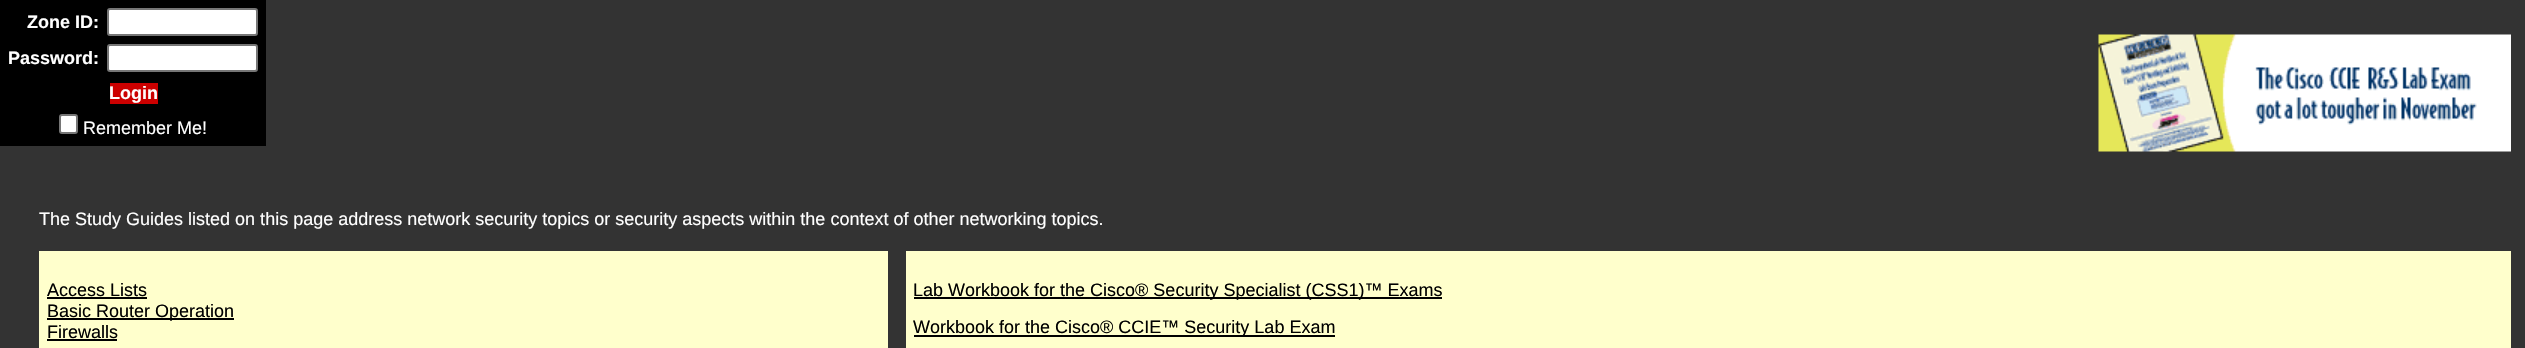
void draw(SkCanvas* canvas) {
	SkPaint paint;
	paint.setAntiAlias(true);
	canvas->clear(0xff333333);
	paint.setColor(0xff000000);
	canvas->drawRect(SkRect::MakeXYWH(0, 0, 266, 146), paint);
	SkFont f1(fontMgr->matchFamilyStyle("Liberation Sans", SkFontStyle::Bold()), 18);
	f1.setSubpixel(true);
	paint.setColor(0xffffffff);
	canvas->drawString("Zone ID:", 27, 28, f1, paint);
	canvas->drawRoundRect(SkRect::MakeXYWH(108, 9, 149, 26), 2, 2, paint);
	paint.setStroke(true);
	paint.setStrokeWidth(2);
	paint.setColor(0xff767676);
	canvas->drawRoundRect(SkRect::MakeXYWH(108, 9, 149, 26), 2, 2, paint);
	paint.setStroke(false);
	paint.setColor(0xffffffff);
	canvas->drawString("Password:", 8, 64, f1, paint);
	canvas->drawRoundRect(SkRect::MakeXYWH(108, 45, 149, 26), 2, 2, paint);
	paint.setStroke(true);
	paint.setColor(0xff767676);
	canvas->drawRoundRect(SkRect::MakeXYWH(108, 45, 149, 26), 2, 2, paint);
	paint.setStroke(false);
	paint.setColor(0xffcc0000);
	canvas->drawRect(SkRect::MakeXYWH(110, 83, 48, 21), paint);
	paint.setColor(0xffffffff);
	canvas->drawString("Login", 109, 99, f1, paint);
	canvas->drawRoundRect(SkRect::MakeXYWH(60, 115, 17, 18), 2, 2, paint);
	paint.setStroke(true);
	paint.setColor(0xff767676);
	canvas->drawRoundRect(SkRect::MakeXYWH(60, 115, 17, 18), 2, 2, paint);
	SkFont f2(fontMgr->matchFamilyStyle("Liberation Sans", SkFontStyle::Normal()), 18);
	f2.setSubpixel(true);
	paint.setStroke(false);
	paint.setColor(0xffffffff);
	canvas->drawString("Remember Me!", 83, 134, f2, paint);
	canvas->drawImageRect(SkImages::DeferredFromEncodedData(SkData::MakeFromFileName("img1.png")), SkRect::MakeXYWH(2098, 34, 413, 118), SkSamplingOptions());
	canvas->drawString("The Study Guides listed on this page address network security topics or security aspects within the context of other networking topics.", 39, 225, f2, paint);
	paint.setColor(0xffffffcc);
	canvas->drawRect(SkRect::MakeXYWH(39, 251, 849, 97), paint);
	paint.setColor(0xff000000);
	canvas->drawString("Access Lists", 47, 296, f2, paint);
	canvas->drawRect(SkRect::MakeXYWH(47, 297, 100, 2), paint);
	canvas->drawRect(SkRect::MakeXYWH(47, 318, 187, 2), paint);
	canvas->drawString("Basic Router Operation", 47, 317, f2, paint);
	canvas->drawString("Firewalls", 47, 338, f2, paint);
	canvas->drawRect(SkRect::MakeXYWH(47, 339, 70, 2), paint);
	paint.setColor(0xffffffcc);
	canvas->drawRect(SkRect::MakeXYWH(906, 251, 1605, 97), paint);
	paint.setColor(0xff000000);
	canvas->drawRect(SkRect::MakeXYWH(914, 297, 528, 2), paint);
	canvas->drawString("Lab Workbook for the Cisco® Security Specialist (CSS1)™ Exams", 913, 296, f2, paint);
	canvas->drawRect(SkRect::MakeXYWH(914, 335, 421, 2), paint);
	canvas->drawString("Workbook for the Cisco® CCIE™ Security Lab Exam", 913, 333, f2, paint);
}
